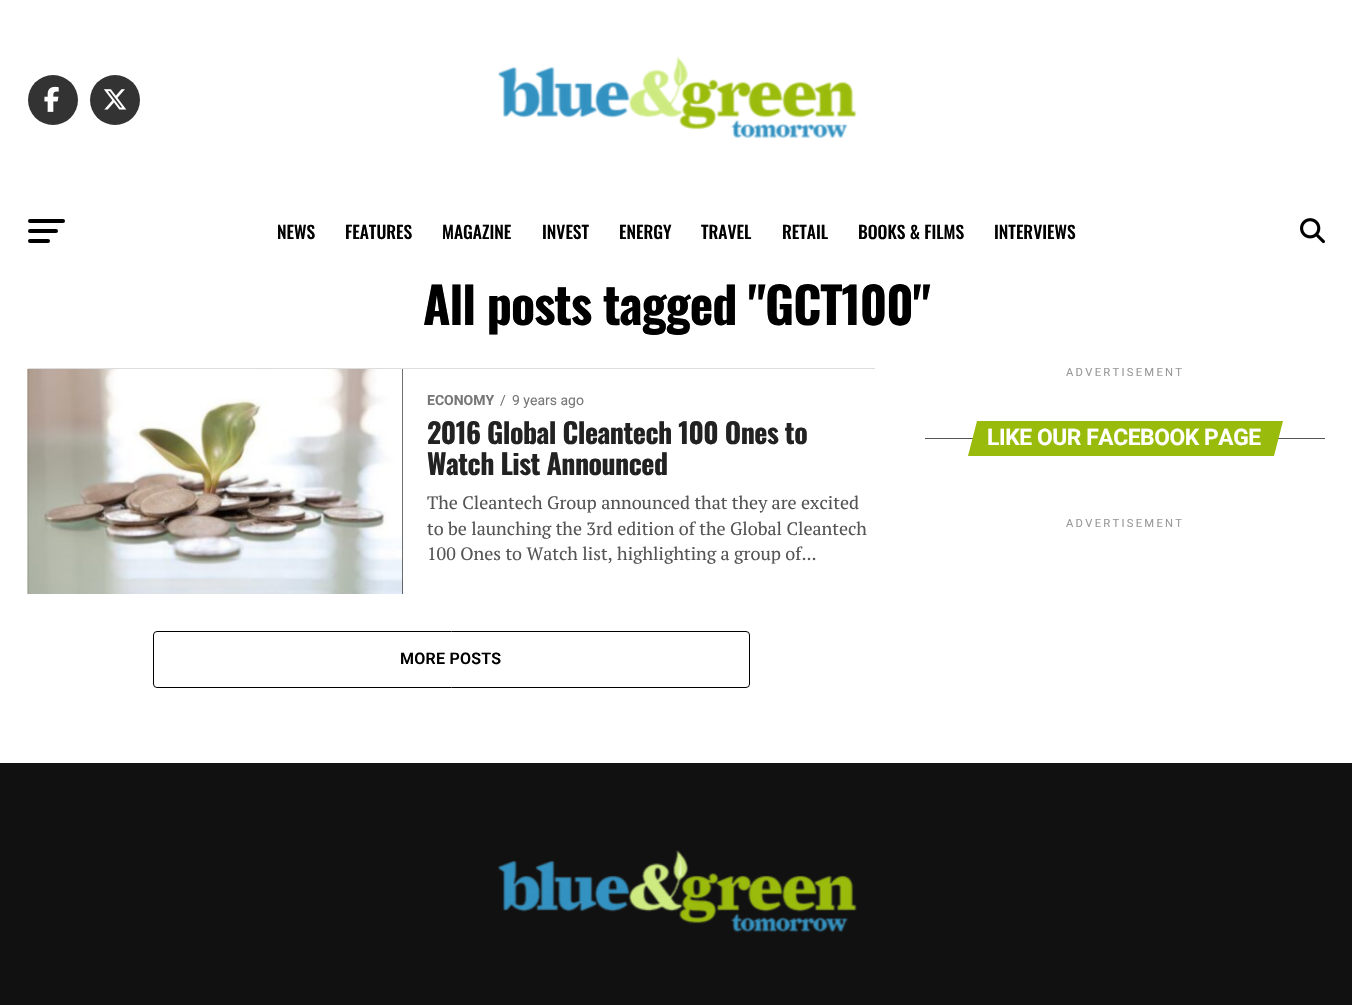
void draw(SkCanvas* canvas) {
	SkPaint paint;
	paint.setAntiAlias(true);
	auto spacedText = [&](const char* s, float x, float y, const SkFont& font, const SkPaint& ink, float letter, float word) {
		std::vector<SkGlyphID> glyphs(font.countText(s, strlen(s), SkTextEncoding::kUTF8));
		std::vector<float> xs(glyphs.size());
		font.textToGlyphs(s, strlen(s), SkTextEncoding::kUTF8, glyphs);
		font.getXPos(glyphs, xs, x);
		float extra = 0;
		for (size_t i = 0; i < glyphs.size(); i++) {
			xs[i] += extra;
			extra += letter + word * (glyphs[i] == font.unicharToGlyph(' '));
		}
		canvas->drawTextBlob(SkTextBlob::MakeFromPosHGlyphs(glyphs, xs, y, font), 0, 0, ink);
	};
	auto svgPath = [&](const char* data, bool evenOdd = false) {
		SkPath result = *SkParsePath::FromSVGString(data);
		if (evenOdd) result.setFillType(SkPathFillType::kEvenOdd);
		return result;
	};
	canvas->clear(0xffffffff);
	paint.setColor(0xff333333);
	canvas->drawCircle(53, 100, 25, paint);
	canvas->drawImageRect(SkImages::DeferredFromEncodedData(SkData::MakeFromFileName("img1.png")), SkRect::MakeXYWH(44, 86, 15, 26), SkSamplingOptions());
	canvas->drawCircle(115, 100, 25, paint);
	canvas->drawImageRect(SkImages::DeferredFromEncodedData(SkData::MakeFromFileName("img2.png")), SkRect::MakeXYWH(103, 89, 24, 21), SkSamplingOptions());
	canvas->drawImageRect(SkImages::DeferredFromEncodedData(SkData::MakeFromFileName("img3.png")), SkRect::MakeXYWH(498, 56, 359, 82), SkSamplingOptions());
	paint.setColor(0xff000000);
	canvas->drawRoundRect(SkRect::MakeXYWH(28, 219, 37, 4), 2, 2, paint);
	canvas->drawRoundRect(SkRect::MakeXYWH(28, 229, 30, 4), 2, 2, paint);
	canvas->drawRoundRect(SkRect::MakeXYWH(28, 239, 22, 4), 2, 2, paint);
	SkFont f1(fontMgr->matchFamilyStyle("Oswald", SkFontStyle(500, SkFontStyle::kNormal_Width, SkFontStyle::kUpright_Slant)), 17.5);
	f1.setSubpixel(true);
	canvas->drawString("NEWS", 277, 239, f1, paint);
	canvas->drawString("FEATURES", 345, 239, f1, paint);
	canvas->drawString("MAGAZINE", 442, 239, f1, paint);
	canvas->drawString("INVEST", 542, 239, f1, paint);
	canvas->drawString("ENERGY", 619, 239, f1, paint);
	canvas->drawString("TRAVEL", 701, 239, f1, paint);
	canvas->drawString("RETAIL", 782, 239, f1, paint);
	canvas->drawString("BOOKS & FILMS", 858, 239, f1, paint);
	canvas->drawString("INTERVIEWS", 994, 239, f1, paint);
	canvas->drawImageRect(SkImages::DeferredFromEncodedData(SkData::MakeFromFileName("img4.png")), SkRect::MakeXYWH(1300, 218, 25, 26), SkSamplingOptions());
	SkFont f2(fontMgr->matchFamilyStyle("Oswald", SkFontStyle::Bold()), 50);
	f2.setSubpixel(true);
	spacedText("All posts tagged \"GCT100\"", 423, 325, f2, paint, -1, 0);
	paint.setColor(0xffdddddd);
	canvas->drawRect(SkRect::MakeXYWH(28, 368, 847, 1), paint);
	paint.setColor(0xff000000);
	canvas->drawRect(SkRect::MakeXYWH(28, 369, 375, 225), paint);
	canvas->drawImageRect(SkImages::DeferredFromEncodedData(SkData::MakeFromFileName("img5.png")), SkRect::MakeXYWH(27, 369, 376, 225), SkSamplingOptions());
	SkFont f3(fontMgr->matchFamilyStyle("Roboto", SkFontStyle::Bold()), 14);
	f3.setSubpixel(true);
	paint.setColor(0xff777777);
	canvas->drawString("ECONOMY", 427, 405, f3, paint);
	SkFont f4(fontMgr->matchFamilyStyle("Roboto", SkFontStyle::Normal()), 14);
	f4.setSubpixel(true);
	canvas->drawString("/", 500, 405, f4, paint);
	canvas->drawString("9 years ago", 512, 405, f4, paint);
	SkFont f5(fontMgr->matchFamilyStyle("Oswald", SkFontStyle::Bold()), 28);
	f5.setSubpixel(true);
	paint.setColor(0xff222222);
	spacedText("2016 Global Cleantech 100 Ones to", 427, 444, f5, paint, -0.55, 0);
	spacedText("Watch List Announced", 427, 475, f5, paint, -0.55, 0);
	SkFont f6(fontMgr->matchFamilyStyle("PT Serif", SkFontStyle::Normal()), 18);
	f6.setSubpixel(true);
	paint.setColor(0xff555555);
	canvas->drawString("The Cleantech Group announced that they are excited", 427, 509, f6, paint);
	canvas->drawString("to be launching the 3rd edition of the Global Cleantech", 427, 535, f6, paint);
	canvas->drawString("100 Ones to Watch list, highlighting a group of...", 427, 560, f6, paint);
	paint.setStroke(true);
	paint.setStrokeWidth(1);
	paint.setColor(0xff000000);
	canvas->drawRoundRect(SkRect::MakeXYWH(153.5, 631.5, 596, 56), 3.5, 3.5, paint);
	SkFont f7(fontMgr->matchFamilyStyle("Roboto", SkFontStyle(600, SkFontStyle::kNormal_Width, SkFontStyle::kUpright_Slant)), 16);
	f7.setSubpixel(true);
	paint.setStroke(false);
	spacedText("MORE POSTS", 400, 664, f7, paint, 0.25, 0);
	SkFont f8(fontMgr->matchFamilyStyle("Roboto", SkFontStyle::Normal()), 11.25);
	f8.setSubpixel(true);
	paint.setColor(0xff999999);
	spacedText("ADVERTISEMENT", 1066, 376, f8, paint, 2.25, 0);
	paint.setColor(0xff555555);
	canvas->drawRect(SkRect::MakeXYWH(925, 438, 400, 1), paint);
	paint.setColor(0xff99bb0b);
	canvas->drawPath(svgPath("M977 421H1283L1274 456H968Z"), paint);
	SkFont f9(fontMgr->matchFamilyStyle("Roboto", SkFontStyle::Bold()), 22.75);
	f9.setSubpixel(true);
	paint.setColor(0xffffffff);
	spacedText("LIKE OUR FACEBOOK PAGE", 987, 445, f9, paint, -0.4, 0);
	paint.setColor(0xff999999);
	spacedText("ADVERTISEMENT", 1066, 527, f8, paint, 2.25, 0);
	paint.setColor(0xff111111);
	canvas->drawRect(SkRect::MakeXYWH(0, 763, 1352, 242), paint);
	canvas->drawImageRect(SkImages::DeferredFromEncodedData(SkData::MakeFromFileName("img6.png")), SkRect::MakeXYWH(498, 850, 359, 83), SkSamplingOptions());
}
